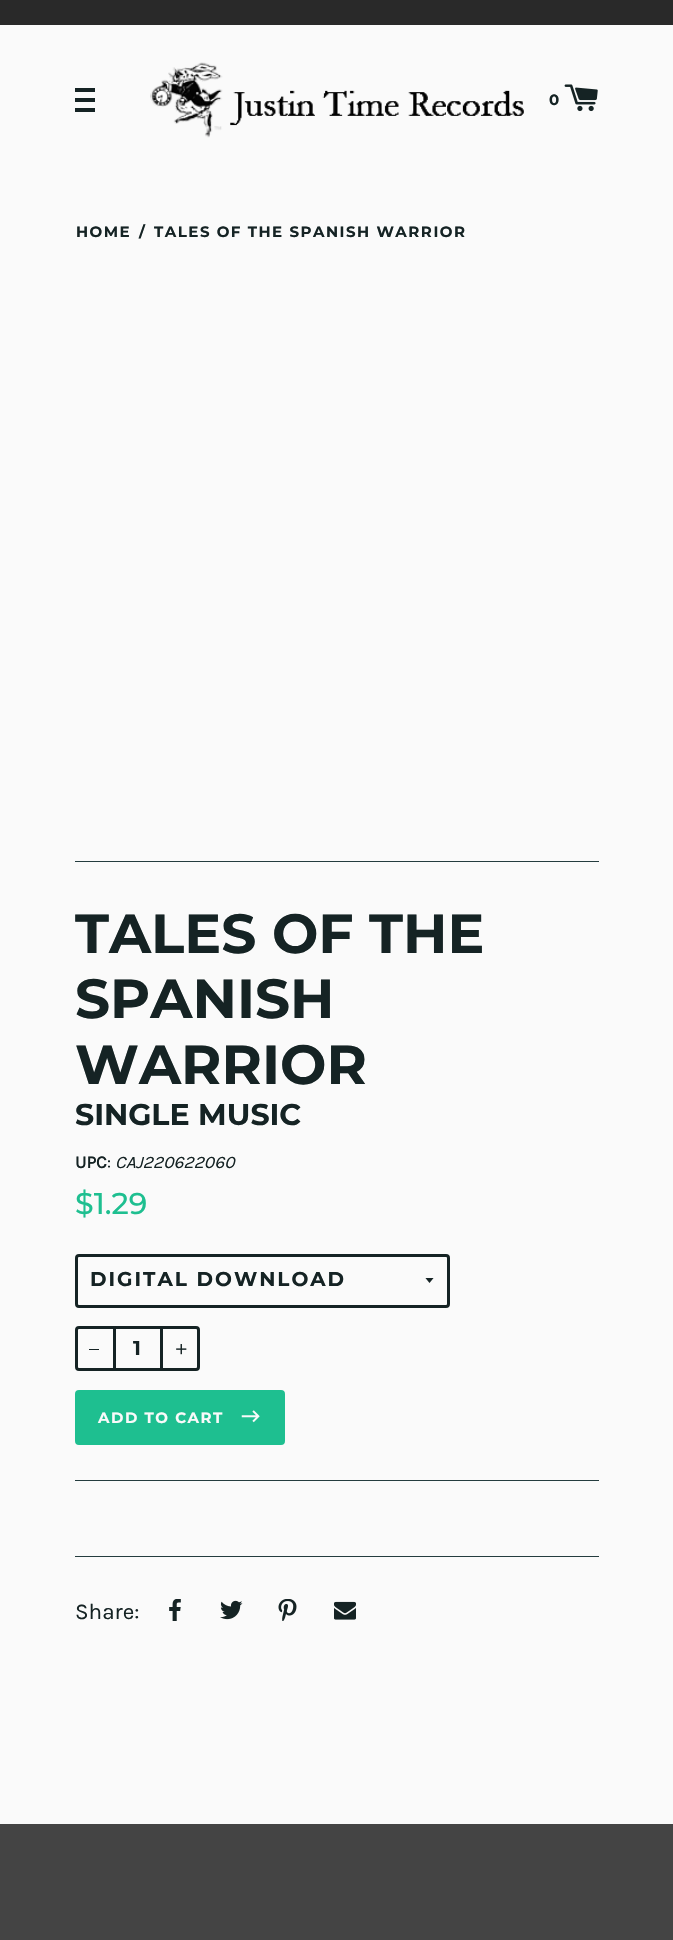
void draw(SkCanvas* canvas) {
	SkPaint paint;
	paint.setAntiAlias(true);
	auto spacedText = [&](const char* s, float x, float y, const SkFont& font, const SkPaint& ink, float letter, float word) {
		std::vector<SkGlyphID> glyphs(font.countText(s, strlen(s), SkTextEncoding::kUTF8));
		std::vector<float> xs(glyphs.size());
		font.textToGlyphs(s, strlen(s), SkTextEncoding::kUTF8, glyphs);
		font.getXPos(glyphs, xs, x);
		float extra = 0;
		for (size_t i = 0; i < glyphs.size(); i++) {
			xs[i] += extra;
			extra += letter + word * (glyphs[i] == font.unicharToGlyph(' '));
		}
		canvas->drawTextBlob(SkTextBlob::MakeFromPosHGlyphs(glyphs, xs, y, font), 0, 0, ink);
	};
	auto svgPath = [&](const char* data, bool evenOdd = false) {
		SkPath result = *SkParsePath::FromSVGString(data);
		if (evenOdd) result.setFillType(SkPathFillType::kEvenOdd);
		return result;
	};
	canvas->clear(0xfffafafa);
	paint.setColor(0xff292929);
	canvas->drawRect(SkRect::MakeXYWH(0, 0, 673, 25), paint);
	paint.setColor(0xff152324);
	canvas->drawRect(SkRect::MakeXYWH(75, 88, 20, 4), paint);
	canvas->drawRect(SkRect::MakeXYWH(75, 98, 20, 4), paint);
	canvas->drawRect(SkRect::MakeXYWH(75, 108, 20, 4), paint);
	canvas->drawImageRect(SkImages::DeferredFromEncodedData(SkData::MakeFromFileName("img1.png")), SkRect::MakeXYWH(150, 62, 374, 76), SkSamplingOptions());
	SkFont f1(fontMgr->matchFamilyStyle("Montserrat", SkFontStyle::Bold()), 15);
	f1.setSubpixel(true);
	canvas->drawString("0", 549, 105, f1, paint);
	canvas->drawImageRect(SkImages::DeferredFromEncodedData(SkData::MakeFromFileName("img2.png")), SkRect::MakeXYWH(564, 84, 34, 28), SkSamplingOptions());
	spacedText("HOME", 76, 237, f1, paint, 1.5, 0);
	spacedText("/", 139, 237, f1, paint, 1.5, 0);
	spacedText("TALES OF THE SPANISH WARRIOR", 154, 237, f1, paint, 1.5, 0);
	paint.setColor(0xff243c3e);
	canvas->drawRect(SkRect::MakeXYWH(75, 861, 524, 1), paint);
	SkFont f2(fontMgr->matchFamilyStyle("Montserrat", SkFontStyle::Bold()), 55);
	f2.setSubpixel(true);
	paint.setColor(0xff152324);
	canvas->drawString("TALES OF THE", 75, 953, f2, paint);
	canvas->drawString("SPANISH", 75, 1018, f2, paint);
	canvas->drawString("WARRIOR", 75, 1084, f2, paint);
	SkFont f3(fontMgr->matchFamilyStyle("Montserrat", SkFontStyle::Bold()), 30);
	f3.setSubpixel(true);
	canvas->drawString("SINGLE MUSIC", 75, 1125, f3, paint);
	SkFont f4(fontMgr->matchFamilyStyle("Karla", SkFontStyle::Bold()), 17.5);
	f4.setSubpixel(true);
	canvas->drawString("UPC", 75, 1168, f4, paint);
	SkFont f5(fontMgr->matchFamilyStyle("Karla", SkFontStyle::Normal()), 17.5);
	f5.setSubpixel(true);
	canvas->drawString(":", 107, 1168, f5, paint);
	SkFont f6(fontMgr->matchFamilyStyle("Karla", SkFontStyle::Italic()), 17.5);
	f6.setSubpixel(true);
	canvas->drawString("CAJ220622060", 115, 1168, f6, paint);
	SkFont f7(fontMgr->matchFamilyStyle("Montserrat", SkFontStyle(500, SkFontStyle::kNormal_Width, SkFontStyle::kUpright_Slant)), 30);
	f7.setSubpixel(true);
	paint.setColor(0xff1ebf90);
	canvas->drawString("$1.29", 75, 1214, f7, paint);
	canvas->save();
	canvas->clipRect(SkRect::MakeXYWH(425, 1278, 10, 6));
	paint.setColor(0xff152324);
	canvas->drawPath(svgPath("M425 1277.5L429.5 1283L434 1277.5Z"), paint);
	canvas->restore();
	paint.setStroke(true);
	paint.setStrokeWidth(3);
	canvas->drawRoundRect(SkRect::MakeXYWH(76.5, 1255.5, 372, 51), 2.5, 2.5, paint);
	SkFont f8(fontMgr->matchFamilyStyle("Montserrat", SkFontStyle::Bold()), 20);
	f8.setSubpixel(true);
	paint.setStroke(false);
	spacedText("DIGITAL DOWNLOAD", 90, 1286, f8, paint, 2, 0);
	paint.setStroke(true);
	canvas->drawRoundRect(SkRect::MakeXYWH(76.5, 1327.5, 122, 42), 2.5, 2.5, paint);
	paint.setStroke(false);
	canvas->drawRect(SkRect::MakeXYWH(113, 1326, 3, 45), paint);
	canvas->drawRect(SkRect::MakeXYWH(89, 1349, 10, 1), paint);
	spacedText("1", 133, 1355, f8, paint, 2, 0);
	canvas->drawRect(SkRect::MakeXYWH(160, 1326, 3, 45), paint);
	canvas->drawImageRect(SkImages::DeferredFromEncodedData(SkData::MakeFromFileName("img3.png")), SkRect::MakeXYWH(176, 1344, 11, 11), SkSamplingOptions());
	paint.setColor(0xff1ebf90);
	canvas->drawRoundRect(SkRect::MakeXYWH(76.5, 1391.5, 207, 52), 2.5, 2.5, paint);
	paint.setStroke(true);
	canvas->drawRoundRect(SkRect::MakeXYWH(76.5, 1391.5, 207, 52), 2.5, 2.5, paint);
	paint.setStroke(false);
	paint.setColor(0xfffafafa);
	spacedText("ADD TO CART", 98, 1423, f1, paint, 1.5, 0);
	canvas->drawImageRect(SkImages::DeferredFromEncodedData(SkData::MakeFromFileName("img4.png")), SkRect::MakeXYWH(241, 1410, 19, 13), SkSamplingOptions());
	paint.setColor(0xff243c3e);
	canvas->drawRect(SkRect::MakeXYWH(75, 1480, 524, 1), paint);
	canvas->drawRect(SkRect::MakeXYWH(75, 1556, 524, 1), paint);
	SkFont f9(fontMgr->matchFamilyStyle("Karla", SkFontStyle::Normal()), 22.5);
	f9.setSubpixel(true);
	paint.setColor(0xff152324);
	canvas->drawString("Share:", 75, 1619, f9, paint);
	canvas->drawImageRect(SkImages::DeferredFromEncodedData(SkData::MakeFromFileName("img5.png")), SkRect::MakeXYWH(169, 1599, 12, 22), SkSamplingOptions());
	canvas->drawImageRect(SkImages::DeferredFromEncodedData(SkData::MakeFromFileName("img6.png")), SkRect::MakeXYWH(220, 1600, 23, 20), SkSamplingOptions());
	canvas->drawImageRect(SkImages::DeferredFromEncodedData(SkData::MakeFromFileName("img7.png")), SkRect::MakeXYWH(278, 1599, 19, 22), SkSamplingOptions());
	canvas->drawImageRect(SkImages::DeferredFromEncodedData(SkData::MakeFromFileName("img8.png")), SkRect::MakeXYWH(334, 1601, 22, 19), SkSamplingOptions());
	paint.setColor(0xff444444);
	canvas->drawRect(SkRect::MakeXYWH(0, 1824, 673, 116), paint);
}
